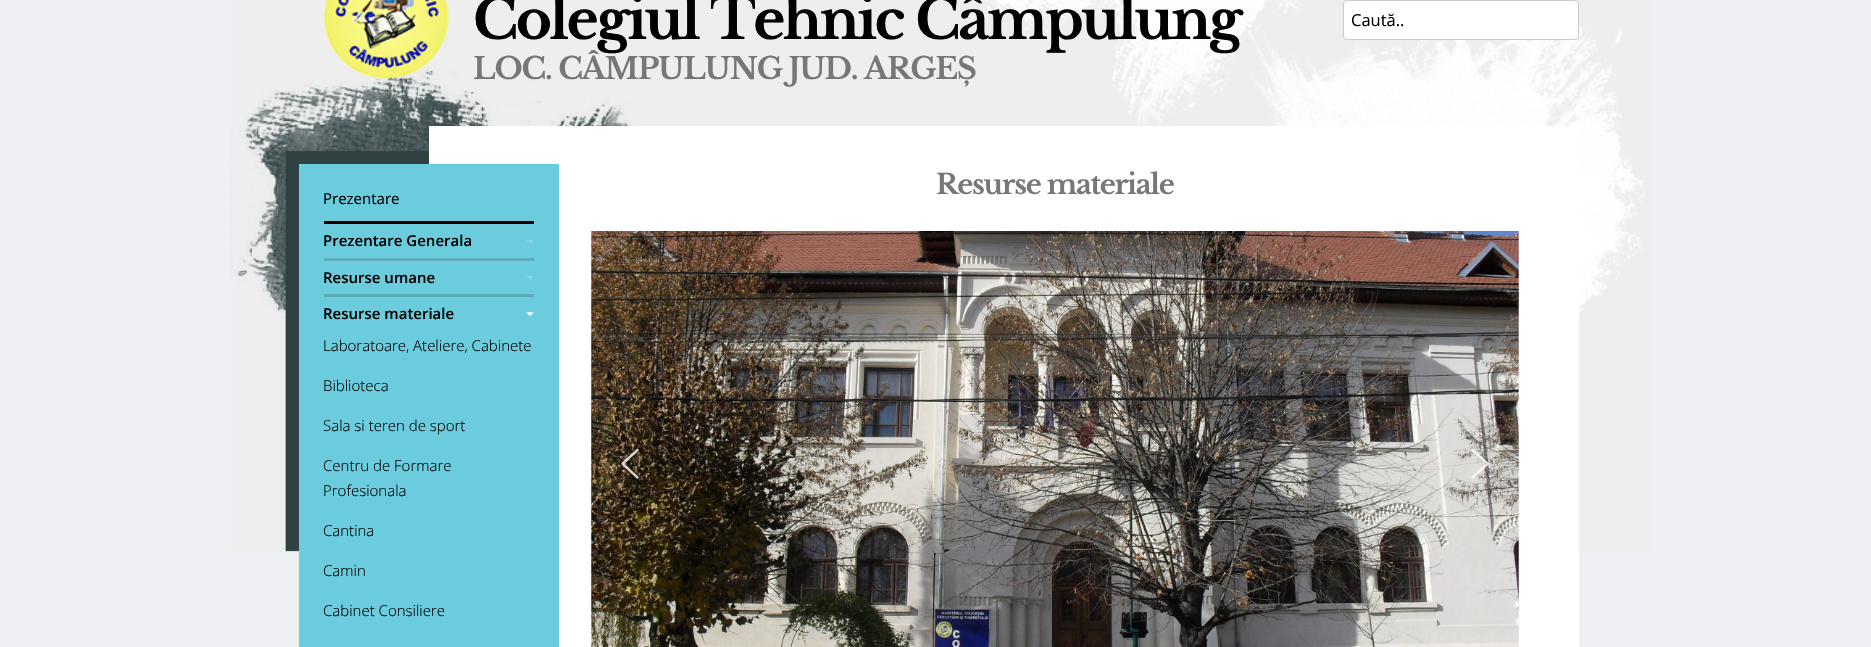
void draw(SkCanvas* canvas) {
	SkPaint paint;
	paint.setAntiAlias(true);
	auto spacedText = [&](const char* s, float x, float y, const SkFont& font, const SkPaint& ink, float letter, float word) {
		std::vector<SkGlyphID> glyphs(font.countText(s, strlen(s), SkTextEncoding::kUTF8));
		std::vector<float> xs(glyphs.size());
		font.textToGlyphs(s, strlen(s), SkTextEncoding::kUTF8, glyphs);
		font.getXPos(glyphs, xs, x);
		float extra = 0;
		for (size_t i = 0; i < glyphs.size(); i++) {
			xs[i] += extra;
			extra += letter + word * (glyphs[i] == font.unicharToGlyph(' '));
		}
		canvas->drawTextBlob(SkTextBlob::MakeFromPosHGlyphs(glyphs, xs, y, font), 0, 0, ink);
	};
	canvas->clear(0xffedeff2);
	canvas->drawImageRect(SkImages::DeferredFromEncodedData(SkData::MakeFromFileName("img1.png")), SkRect::MakeXYWH(230, 0, 1421, 552), SkSamplingOptions());
	canvas->drawImageRect(SkImages::DeferredFromEncodedData(SkData::MakeFromFileName("img2.png")), SkRect::MakeXYWH(323, 0, 126, 79), SkSamplingOptions());
	SkFont f1(fontMgr->matchFamilyStyle("Libre Baskerville", SkFontStyle::Bold()), 55);
	f1.setSubpixel(true);
	paint.setColor(0xff000000);
	spacedText("Colegiul Tehnic Câmpulung", 473, 39, f1, paint, -2.5, 0);
	SkFont f2(fontMgr->matchFamilyStyle("Libre Baskerville", SkFontStyle::Bold()), 30);
	f2.setSubpixel(true);
	paint.setColor(0xff777777);
	spacedText("LOC. CÂMPULUNG JUD. ARGEȘ", 473, 79, f2, paint, -1.25, 0);
	paint.setColor(0xffffffff);
	canvas->drawRoundRect(SkRect::MakeXYWH(1343.5, 0.5, 235, 39), 3.5, 3.5, paint);
	paint.setStroke(true);
	paint.setStrokeWidth(1);
	paint.setColor(0xffcccccc);
	canvas->drawRoundRect(SkRect::MakeXYWH(1343.5, 0.5, 235, 39), 3.5, 3.5, paint);
	SkFont f3(fontMgr->matchFamilyStyle("Open Sans", SkFontStyle::Normal()), 16.5);
	f3.setSubpixel(true);
	paint.setStroke(false);
	paint.setColor(0xff000000);
	canvas->drawString("Caută..", 1351, 26, f3, paint);
	paint.setColor(0xffffffff);
	canvas->drawRect(SkRect::MakeXYWH(429, 126, 1150, 521), paint);
	SkFont f4(fontMgr->matchFamilyStyle("Libre Baskerville", SkFontStyle::Bold()), 27.5);
	f4.setSubpixel(true);
	paint.setColor(0xff777777);
	spacedText("Resurse materiale", 936, 194, f4, paint, -1.25, 0);
	canvas->drawImageRect(SkImages::DeferredFromEncodedData(SkData::MakeFromFileName("img3.png")), SkRect::MakeXYWH(591, 231, 928, 416), SkSamplingOptions());
	canvas->drawImageRect(SkImages::DeferredFromEncodedData(SkData::MakeFromFileName("img4.png")), SkRect::MakeXYWH(621, 448, 18, 31), SkSamplingOptions());
	canvas->drawImageRect(SkImages::DeferredFromEncodedData(SkData::MakeFromFileName("img5.png")), SkRect::MakeXYWH(1471, 448, 18, 31), SkSamplingOptions());
	paint.setColor(0xff6bccdd);
	canvas->drawRect(SkRect::MakeXYWH(299, 164, 260, 483), paint);
	paint.setColor(0xff000000);
	canvas->drawRect(SkRect::MakeXYWH(324, 221, 210, 3), paint);
	SkFont f5(fontMgr->matchFamilyStyle("Open Sans", SkFontStyle::Normal()), 15);
	f5.setSubpixel(true);
	canvas->drawString("Prezentare", 323, 204, f5, paint);
	canvas->drawImageRect(SkImages::DeferredFromEncodedData(SkData::MakeFromFileName("img6.png")), SkRect::MakeXYWH(526, 239, 8, 5), SkSamplingOptions());
	SkFont f6(fontMgr->matchFamilyStyle("Open Sans", SkFontStyle(600, SkFontStyle::kNormal_Width, SkFontStyle::kUpright_Slant)), 15);
	f6.setSubpixel(true);
	canvas->drawString("Prezentare Generala", 323, 246, f6, paint);
	canvas->drawImageRect(SkImages::DeferredFromEncodedData(SkData::MakeFromFileName("img7.png")), SkRect::MakeXYWH(526, 276, 8, 4), SkSamplingOptions());
	paint.setColor(0xff5cadba);
	canvas->drawRect(SkRect::MakeXYWH(324, 258, 210, 3), paint);
	paint.setColor(0xff000000);
	canvas->drawString("Resurse umane", 323, 283, f6, paint);
	canvas->drawImageRect(SkImages::DeferredFromEncodedData(SkData::MakeFromFileName("img8.png")), SkRect::MakeXYWH(526, 312, 8, 4), SkSamplingOptions());
	paint.setColor(0xff5cadba);
	canvas->drawRect(SkRect::MakeXYWH(324, 294, 210, 3), paint);
	paint.setColor(0xff000000);
	canvas->drawString("Resurse materiale", 323, 319, f6, paint);
	canvas->drawImageRect(SkImages::DeferredFromEncodedData(SkData::MakeFromFileName("img9.png")), SkRect::MakeXYWH(526, 342, 8, 4), SkSamplingOptions());
	SkFont f7(fontMgr->matchFamilyStyle("Open Sans", SkFontStyle(300, SkFontStyle::kNormal_Width, SkFontStyle::kUpright_Slant)), 15);
	f7.setSubpixel(true);
	canvas->drawString("Laboratoare, Ateliere, Cabinete", 323, 351, f7, paint);
	canvas->drawString("Biblioteca", 323, 391, f7, paint);
	canvas->drawString("Sala si teren de sport", 323, 431, f7, paint);
	canvas->drawString("Centru de Formare", 323, 471, f7, paint);
	canvas->drawString("Profesionala", 323, 496, f7, paint);
	canvas->drawString("Cantina", 323, 536, f7, paint);
	canvas->drawString("Camin", 323, 576, f7, paint);
	canvas->drawString("Cabinet Consiliere", 323, 616, f7, paint);
}
